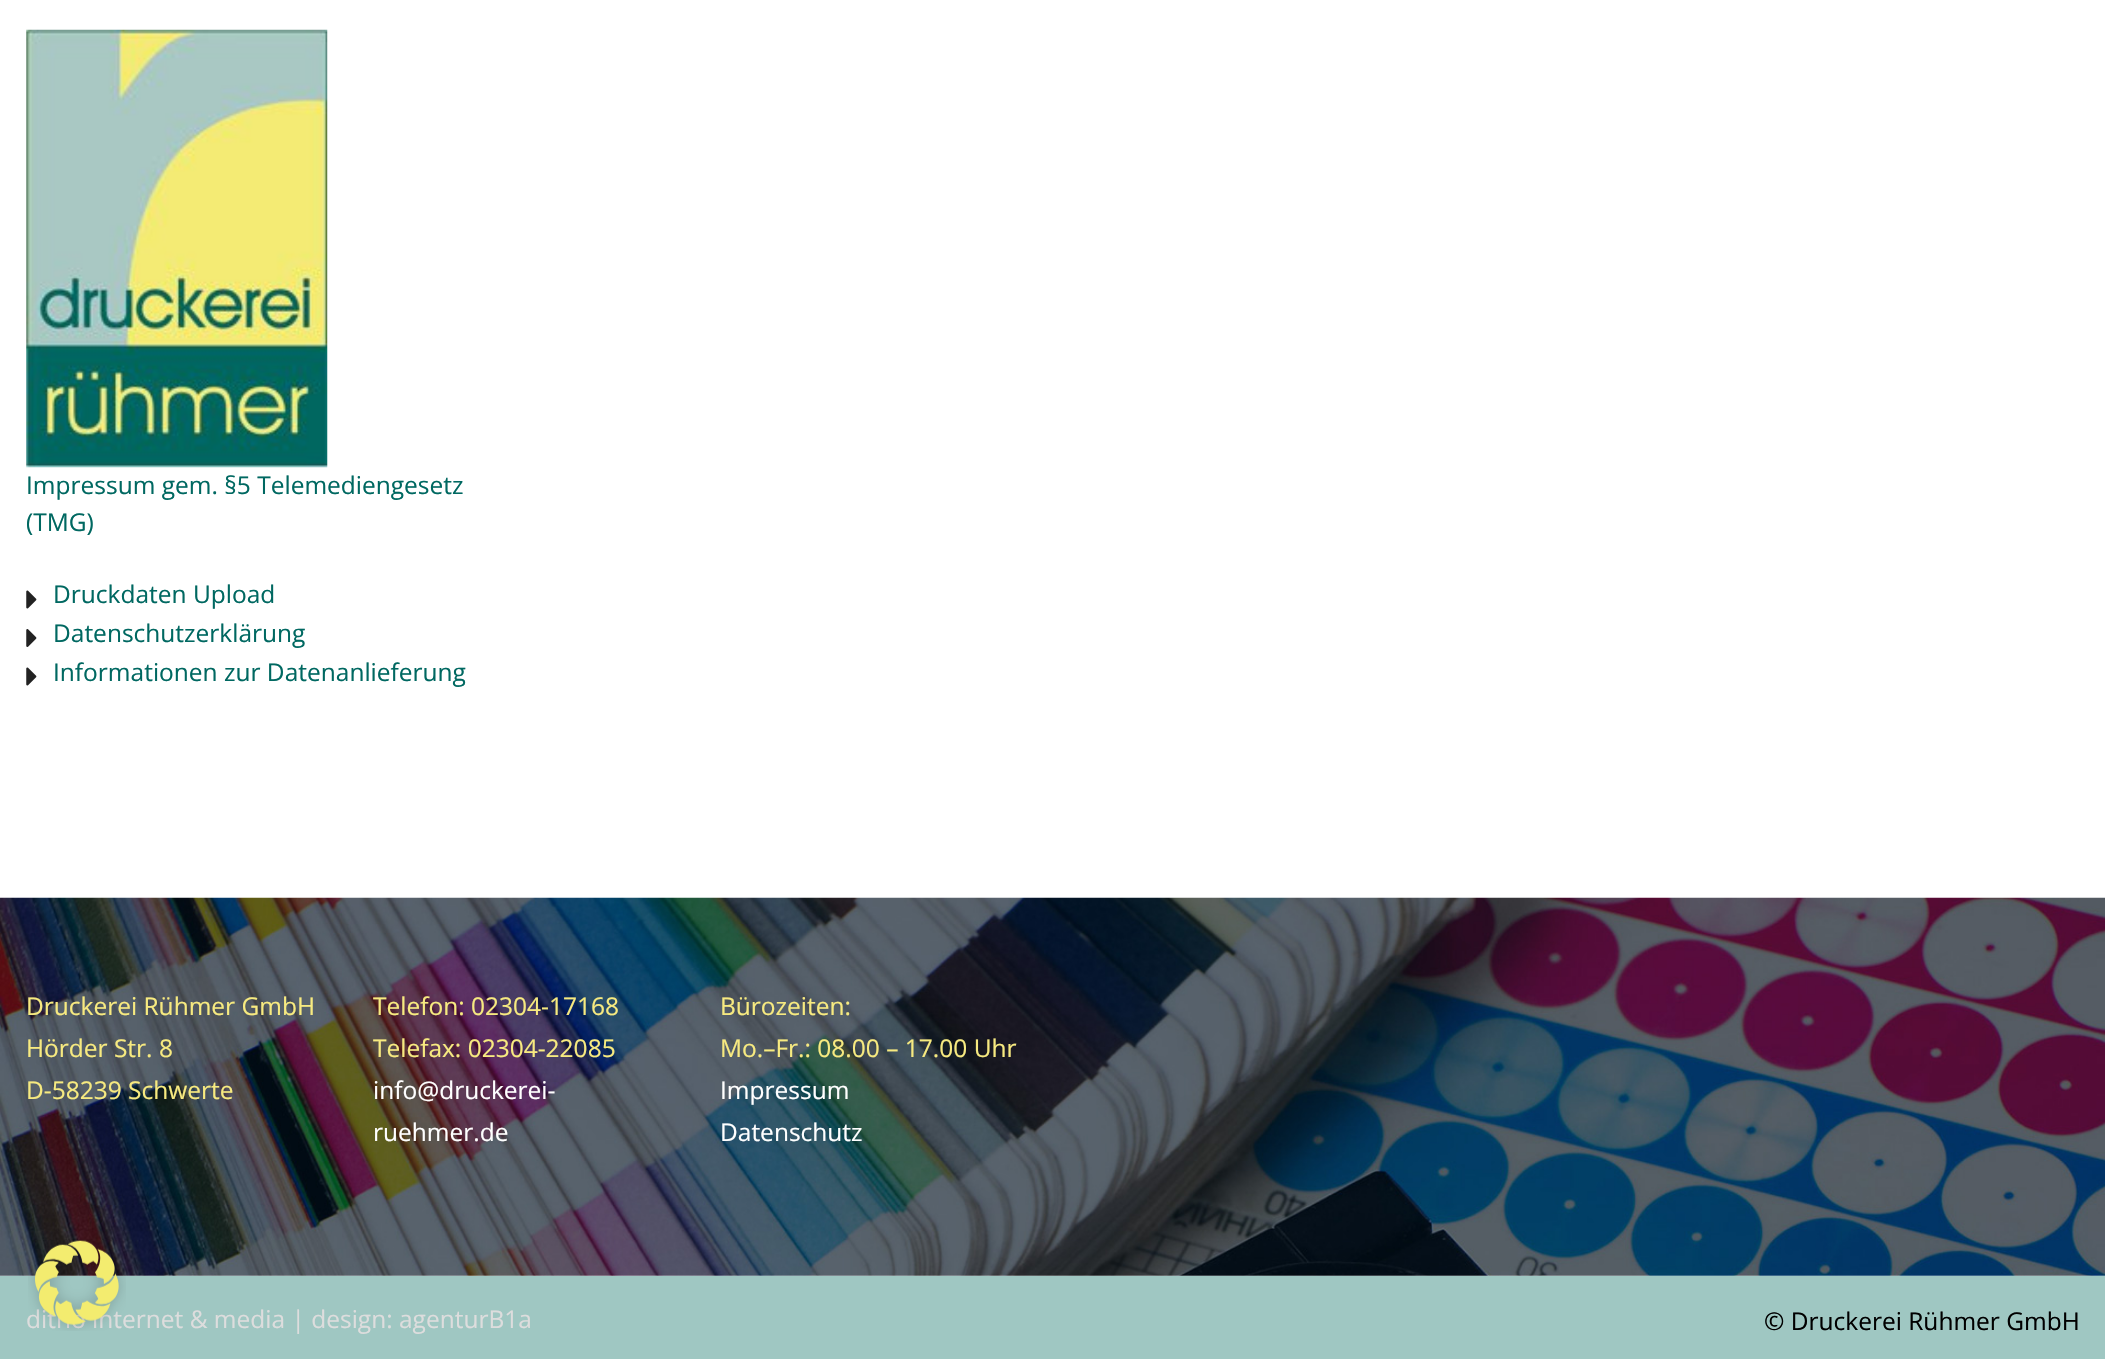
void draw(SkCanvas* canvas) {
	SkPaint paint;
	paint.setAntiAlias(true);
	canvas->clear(0xffffffff);
	canvas->drawImageRect(SkImages::DeferredFromEncodedData(SkData::MakeFromFileName("img1.png")), SkRect::MakeXYWH(26, 29, 302, 439), SkSamplingOptions());
	SkFont f1(fontMgr->matchFamilyStyle("Open Sans", SkFontStyle::Normal()), 24.5);
	f1.setSubpixel(true);
	paint.setColor(0xff006861);
	canvas->drawString("Impressum gem. §5 Telemediengesetz", 26, 494, f1, paint);
	canvas->drawString("(TMG)", 26, 531, f1, paint);
	canvas->drawImageRect(SkImages::DeferredFromEncodedData(SkData::MakeFromFileName("img2.png")), SkRect::MakeXYWH(26, 590, 11, 19), SkSamplingOptions());
	canvas->drawString("Druckdaten Upload", 53, 603, f1, paint);
	canvas->drawImageRect(SkImages::DeferredFromEncodedData(SkData::MakeFromFileName("img3.png")), SkRect::MakeXYWH(26, 629, 11, 18), SkSamplingOptions());
	canvas->drawString("Datenschutzerklärung", 53, 642, f1, paint);
	canvas->drawImageRect(SkImages::DeferredFromEncodedData(SkData::MakeFromFileName("img2.png")), SkRect::MakeXYWH(26, 667, 11, 19), SkSamplingOptions());
	canvas->drawString("Informationen zur Datenanlieferung", 53, 681, f1, paint);
	canvas->drawImageRect(SkImages::DeferredFromEncodedData(SkData::MakeFromFileName("img4.png")), SkRect::MakeXYWH(0, 897, 2105, 379), SkSamplingOptions());
	paint.setColor(0xfff7ea80);
	canvas->drawString("Druckerei Rühmer GmbH", 26, 1015, f1, paint);
	canvas->drawString("Hörder Str. 8", 26, 1057, f1, paint);
	canvas->drawString("D-58239 Schwerte", 26, 1099, f1, paint);
	canvas->drawString("Telefon: 02304-17168", 373, 1015, f1, paint);
	canvas->drawString("Telefax: 02304-22085", 373, 1057, f1, paint);
	paint.setColor(0xffffffff);
	canvas->drawString("info@druckerei-", 373, 1099, f1, paint);
	canvas->drawString("ruehmer.de", 373, 1141, f1, paint);
	paint.setColor(0xfff7ea80);
	canvas->drawString("Bürozeiten:", 720, 1015, f1, paint);
	canvas->drawString("Mo.–Fr.: 08.00 – 17.00 Uhr", 720, 1057, f1, paint);
	paint.setColor(0xffffffff);
	canvas->drawString("Impressum", 720, 1099, f1, paint);
	canvas->drawString("Datenschutz", 720, 1141, f1, paint);
	paint.setColor(0xff9fc7c2);
	canvas->drawRect(SkRect::MakeXYWH(0, 1276, 2105, 83), paint);
	paint.setColor(0xffdddddd);
	canvas->drawString("ditho internet & media | design: agenturB1a", 26, 1328, f1, paint);
	canvas->drawImageRect(SkImages::DeferredFromEncodedData(SkData::MakeFromFileName("img5.png")), SkRect::MakeXYWH(28, 1239, 98, 92), SkSamplingOptions());
	paint.setColor(0xff000000);
	canvas->drawString("© Druckerei Rühmer GmbH", 1764, 1330, f1, paint);
}
